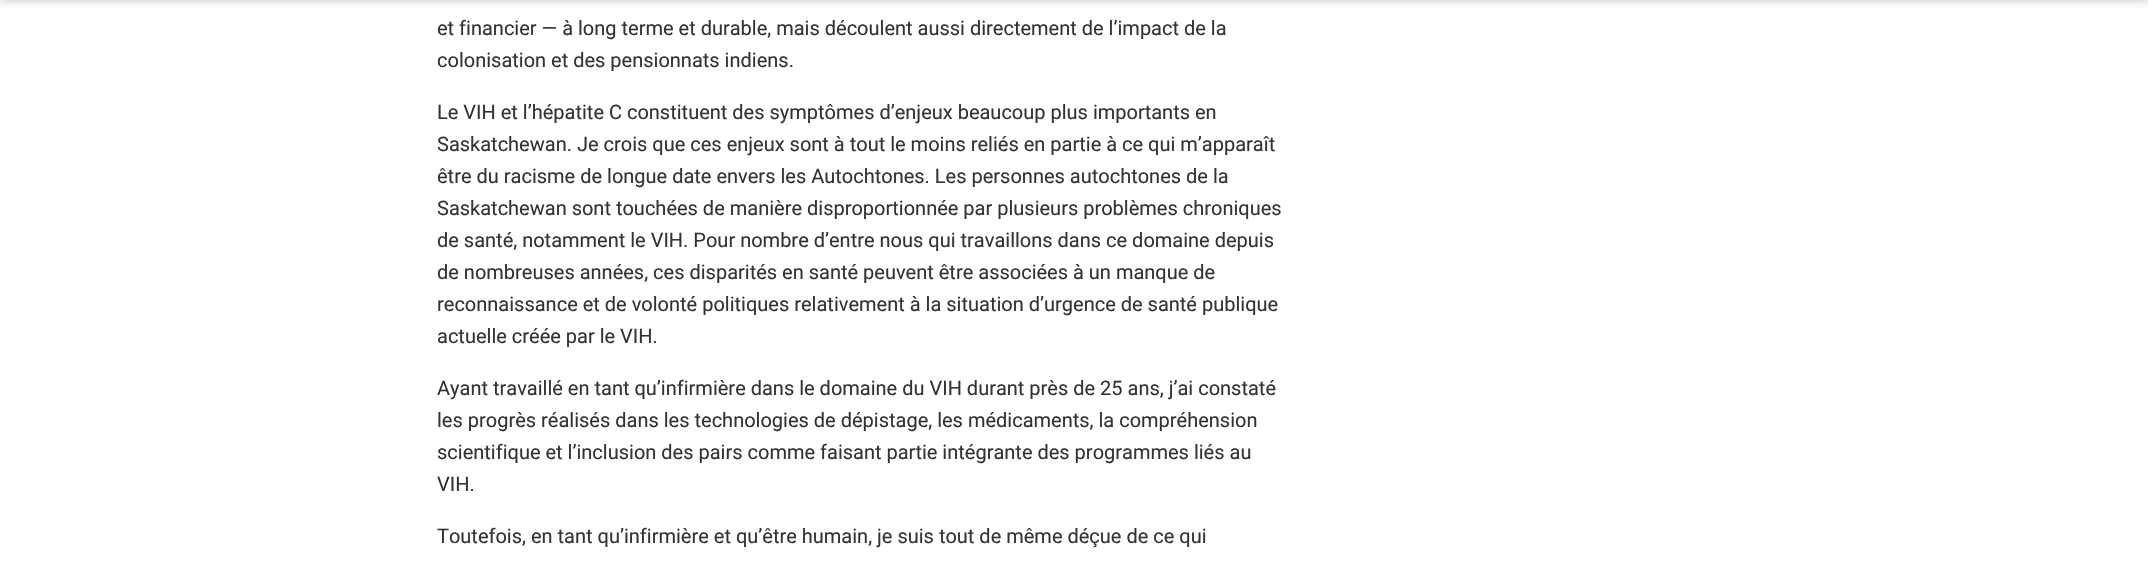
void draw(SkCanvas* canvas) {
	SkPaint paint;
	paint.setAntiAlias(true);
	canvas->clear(0xffffffff);
	paint.setColor(0x33000000);
	paint.setMaskFilter(SkMaskFilter::MakeBlur(kNormal_SkBlurStyle, 4));
	canvas->drawRect(SkRect::MakeXYWH(0, -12, 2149, 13), paint);
	paint.setMaskFilter(nullptr);
	SkFont f1(fontMgr->matchFamilyStyle("Roboto", SkFontStyle::Normal()), 20);
	f1.setSubpixel(true);
	paint.setColor(0xff333333);
	canvas->drawString("et financier — à long terme et durable, mais découlent aussi directement de l’impact de la", 437, 35, f1, paint);
	canvas->drawString("colonisation et des pensionnats indiens.", 437, 67, f1, paint);
	canvas->drawString("Le VIH et l’hépatite C constituent des symptômes d’enjeux beaucoup plus importants en", 437, 119, f1, paint);
	canvas->drawString("Saskatchewan. Je crois que ces enjeux sont à tout le moins reliés en partie à ce qui m’apparaît", 437, 151, f1, paint);
	canvas->drawString("être du racisme de longue date envers les Autochtones. Les personnes autochtones de la", 437, 183, f1, paint);
	canvas->drawString("Saskatchewan sont touchées de manière disproportionnée par plusieurs problèmes chroniques", 437, 215, f1, paint);
	canvas->drawString("de santé, notamment le VIH. Pour nombre d’entre nous qui travaillons dans ce domaine depuis", 437, 247, f1, paint);
	canvas->drawString("de nombreuses années, ces disparités en santé peuvent être associées à un manque de", 437, 279, f1, paint);
	canvas->drawString("reconnaissance et de volonté politiques relativement à la situation d’urgence de santé publique", 437, 311, f1, paint);
	canvas->drawString("actuelle créée par le VIH.", 437, 343, f1, paint);
	canvas->drawString("Ayant travaillé en tant qu’infirmière dans le domaine du VIH durant près de 25 ans, j’ai constaté", 437, 395, f1, paint);
	canvas->drawString("les progrès réalisés dans les technologies de dépistage, les médicaments, la compréhension", 437, 427, f1, paint);
	canvas->drawString("scientifique et l’inclusion des pairs comme faisant partie intégrante des programmes liés au", 437, 459, f1, paint);
	canvas->drawString("VIH.", 437, 491, f1, paint);
	canvas->drawString("Toutefois, en tant qu’infirmière et qu’être humain, je suis tout de même déçue de ce qui", 437, 543, f1, paint);
}
